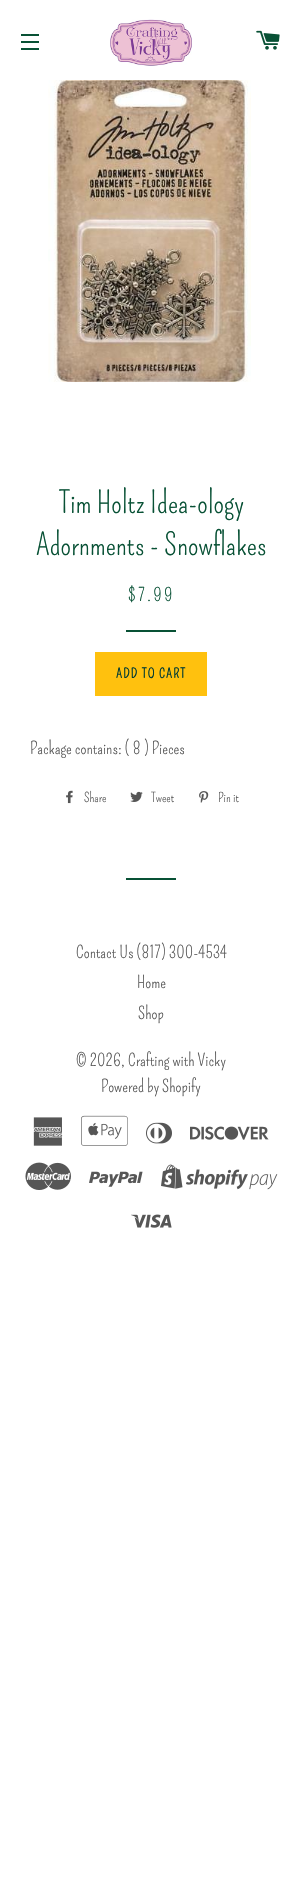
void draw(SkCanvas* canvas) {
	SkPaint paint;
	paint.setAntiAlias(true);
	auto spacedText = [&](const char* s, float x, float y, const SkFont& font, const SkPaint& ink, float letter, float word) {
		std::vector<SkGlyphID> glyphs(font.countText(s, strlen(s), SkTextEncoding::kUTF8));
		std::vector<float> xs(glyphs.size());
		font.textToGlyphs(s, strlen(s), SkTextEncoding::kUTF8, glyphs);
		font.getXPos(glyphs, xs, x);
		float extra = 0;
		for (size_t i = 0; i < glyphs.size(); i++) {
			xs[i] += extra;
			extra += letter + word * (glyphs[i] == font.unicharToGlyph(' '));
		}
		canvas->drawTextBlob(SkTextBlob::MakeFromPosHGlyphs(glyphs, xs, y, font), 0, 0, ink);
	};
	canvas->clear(0xffffffff);
	paint.setColor(0xff085135);
	canvas->drawRect(SkRect::MakeXYWH(21, 34, 18, 2), paint);
	canvas->drawRect(SkRect::MakeXYWH(21, 41, 18, 2), paint);
	canvas->drawRect(SkRect::MakeXYWH(21, 48, 18, 2), paint);
	canvas->drawImageRect(SkImages::DeferredFromEncodedData(SkData::MakeFromFileName("img1.png")), SkRect::MakeXYWH(110, 19, 82, 47), SkSamplingOptions());
	canvas->drawImageRect(SkImages::DeferredFromEncodedData(SkData::MakeFromFileName("img2.png")), SkRect::MakeXYWH(256, 30, 24, 20), SkSamplingOptions());
	canvas->drawImageRect(SkImages::DeferredFromEncodedData(SkData::MakeFromFileName("img3.png")), SkRect::MakeXYWH(48, 80, 203, 302), SkSamplingOptions());
	SkFont f1(fontMgr->matchFamilyStyle("Pompiere", SkFontStyle::Normal()), 30);
	f1.setSubpixel(true);
	canvas->drawString("Tim Holtz Idea-ology", 59, 513, f1, paint);
	canvas->drawString("Adornments - Snowflakes", 36, 555, f1, paint);
	SkFont f2(fontMgr->matchFamilyStyle("Pompiere", SkFontStyle::Normal()), 18);
	f2.setSubpixel(true);
	spacedText("$7.99", 128, 601, f2, paint, 2, 0);
	canvas->drawRect(SkRect::MakeXYWH(126, 630, 50, 2), paint);
	paint.setColor(0xffffc10e);
	canvas->drawRect(SkRect::MakeXYWH(95, 652, 112, 44), paint);
	SkFont f3(fontMgr->matchFamilyStyle("Pompiere", SkFontStyle::Bold()), 13);
	f3.setSubpixel(true);
	paint.setColor(0xff003b34);
	spacedText("ADD TO CART", 116, 678, f3, paint, 1.25, 0);
	SkFont f4(fontMgr->matchFamilyStyle("Pompiere", SkFontStyle::Normal()), 17);
	f4.setSubpixel(true);
	paint.setColor(0xff565656);
	canvas->drawString("Package contains: ( 8 ) Pieces", 30, 754, f4, paint);
	canvas->drawImageRect(SkImages::DeferredFromEncodedData(SkData::MakeFromFileName("img4.png")), SkRect::MakeXYWH(66, 790, 7, 14), SkSamplingOptions());
	SkFont f5(fontMgr->matchFamilyStyle("Pompiere", SkFontStyle::Normal()), 13);
	f5.setSubpixel(true);
	canvas->drawString("Share", 84, 802, f5, paint);
	canvas->drawImageRect(SkImages::DeferredFromEncodedData(SkData::MakeFromFileName("img5.png")), SkRect::MakeXYWH(130, 791, 13, 11), SkSamplingOptions());
	canvas->drawString("Tweet", 151, 802, f5, paint);
	canvas->drawImageRect(SkImages::DeferredFromEncodedData(SkData::MakeFromFileName("img6.png")), SkRect::MakeXYWH(199, 791, 10, 12), SkSamplingOptions());
	canvas->drawString("Pin it", 218, 802, f5, paint);
	paint.setColor(0xff085135);
	canvas->drawRect(SkRect::MakeXYWH(126, 878, 50, 2), paint);
	paint.setColor(0xff565656);
	canvas->drawString("Contact Us (817) 300-4534", 76, 958, f4, paint);
	canvas->drawString("Home", 137, 988, f4, paint);
	canvas->drawString("Shop", 138, 1019, f4, paint);
	canvas->drawString("© 2026, Crafting with Vicky", 76, 1066, f4, paint);
	canvas->drawString("Powered by Shopify", 101, 1092, f4, paint);
	canvas->drawImageRect(SkImages::DeferredFromEncodedData(SkData::MakeFromFileName("img7.png")), SkRect::MakeXYWH(33, 1117, 30, 29), SkSamplingOptions());
	canvas->drawImageRect(SkImages::DeferredFromEncodedData(SkData::MakeFromFileName("img8.png")), SkRect::MakeXYWH(81, 1115, 47, 31), SkSamplingOptions());
	canvas->drawImageRect(SkImages::DeferredFromEncodedData(SkData::MakeFromFileName("img9.png")), SkRect::MakeXYWH(146, 1122, 26, 22), SkSamplingOptions());
	canvas->drawImageRect(SkImages::DeferredFromEncodedData(SkData::MakeFromFileName("img10.png")), SkRect::MakeXYWH(190, 1126, 79, 14), SkSamplingOptions());
	canvas->drawImageRect(SkImages::DeferredFromEncodedData(SkData::MakeFromFileName("img11.png")), SkRect::MakeXYWH(25, 1162, 46, 28), SkSamplingOptions());
	canvas->drawImageRect(SkImages::DeferredFromEncodedData(SkData::MakeFromFileName("img12.png")), SkRect::MakeXYWH(89, 1171, 54, 16), SkSamplingOptions());
	canvas->drawImageRect(SkImages::DeferredFromEncodedData(SkData::MakeFromFileName("img13.png")), SkRect::MakeXYWH(161, 1164, 117, 26), SkSamplingOptions());
	canvas->drawImageRect(SkImages::DeferredFromEncodedData(SkData::MakeFromFileName("img14.png")), SkRect::MakeXYWH(131, 1214, 41, 14), SkSamplingOptions());
}
